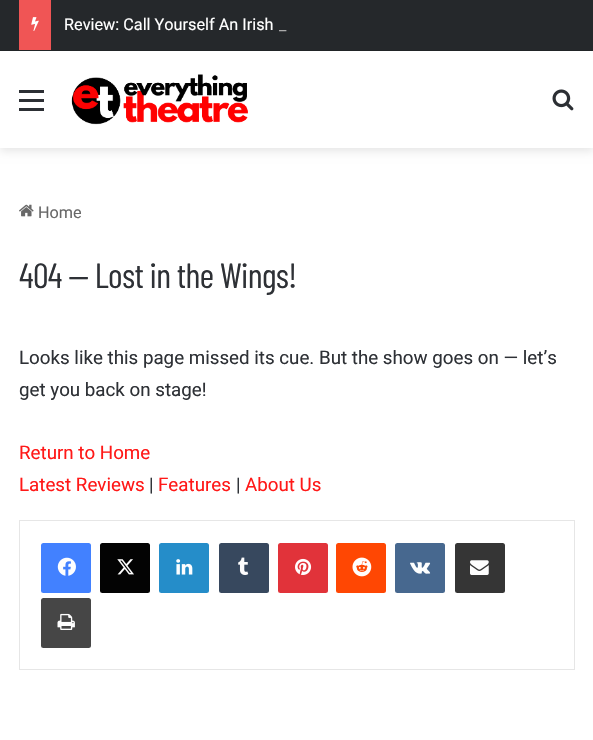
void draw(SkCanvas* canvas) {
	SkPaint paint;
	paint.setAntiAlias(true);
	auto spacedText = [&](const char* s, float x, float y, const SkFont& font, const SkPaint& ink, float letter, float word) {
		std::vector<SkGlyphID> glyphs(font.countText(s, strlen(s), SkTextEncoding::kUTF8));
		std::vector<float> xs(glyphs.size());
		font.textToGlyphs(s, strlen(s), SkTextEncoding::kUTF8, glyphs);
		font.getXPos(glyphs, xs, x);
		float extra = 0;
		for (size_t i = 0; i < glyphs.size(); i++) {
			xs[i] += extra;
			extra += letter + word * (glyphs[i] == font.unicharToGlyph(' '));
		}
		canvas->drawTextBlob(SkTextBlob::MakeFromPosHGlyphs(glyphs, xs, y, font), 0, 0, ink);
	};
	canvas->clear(0xffffffff);
	paint.setColor(0x1a000000);
	paint.setMaskFilter(SkMaskFilter::MakeBlur(kNormal_SkBlurStyle, 4.5));
	canvas->drawRect(SkRect::MakeXYWH(0, 55, 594, 96), paint);
	paint.setMaskFilter(nullptr);
	paint.setColor(0xff25282b);
	canvas->drawRect(SkRect::MakeXYWH(0, 0, 593, 50), paint);
	paint.setColor(0xff212427);
	canvas->drawRect(SkRect::MakeXYWH(0, 50, 593, 1), paint);
	paint.setColor(0xfff05555);
	canvas->drawRect(SkRect::MakeXYWH(19, 0, 32, 50), paint);
	canvas->drawImageRect(SkImages::DeferredFromEncodedData(SkData::MakeFromFileName("img1.png")), SkRect::MakeXYWH(31, 17, 8, 14), SkSamplingOptions());
	SkFont f1(fontMgr->matchFamilyStyle("Roboto", SkFontStyle::Normal()), 16.25);
	f1.setSubpixel(true);
	paint.setColor(0xffffffff);
	canvas->drawString("Review: Call Yourself An Irish", 64, 30, f1, paint);
	paint.setColor(0xffaaaaaa);
	canvas->drawString("_", 279, 30, f1, paint);
	paint.setColor(0xffffffff);
	canvas->drawRect(SkRect::MakeXYWH(0, 51, 593, 97), paint);
	paint.setColor(0xff2c2f34);
	canvas->drawRect(SkRect::MakeXYWH(19, 99, 25, 3), paint);
	canvas->drawRect(SkRect::MakeXYWH(19, 90, 25, 3), paint);
	canvas->drawRect(SkRect::MakeXYWH(19, 108, 25, 3), paint);
	canvas->drawImageRect(SkImages::DeferredFromEncodedData(SkData::MakeFromFileName("img2.png")), SkRect::MakeXYWH(71, 74, 177, 51), SkSamplingOptions());
	canvas->drawImageRect(SkImages::DeferredFromEncodedData(SkData::MakeFromFileName("img3.png")), SkRect::MakeXYWH(552, 89, 22, 22), SkSamplingOptions());
	canvas->drawImageRect(SkImages::DeferredFromEncodedData(SkData::MakeFromFileName("img4.png")), SkRect::MakeXYWH(19, 204, 15, 13), SkSamplingOptions());
	paint.setColor(0xff686868);
	canvas->drawString("Home", 38, 218, f1, paint);
	SkFont f2(fontMgr->matchFamilyStyle("Barlow Condensed", SkFontStyle::Normal()), 35);
	f2.setSubpixel(true);
	paint.setColor(0xff2e3136);
	spacedText("404 — Lost in the Wings!", 19, 288, f2, paint, -0.6, 0);
	SkFont f3(fontMgr->matchFamilyStyle("Roboto", SkFontStyle::Normal()), 18.75);
	f3.setSubpixel(true);
	canvas->drawString("Looks like this page missed its cue. But the show goes on — let’s", 19, 364, f3, paint);
	canvas->drawString("get you back on stage!", 19, 396, f3, paint);
	paint.setColor(0xffff1918);
	canvas->drawString("Return to Home", 19, 459, f3, paint);
	canvas->drawString("Latest Reviews", 19, 491, f3, paint);
	paint.setColor(0xff2e3136);
	canvas->drawString("|", 149, 491, f3, paint);
	paint.setColor(0xffff1918);
	canvas->drawString("Features", 158, 491, f3, paint);
	paint.setColor(0xff2e3136);
	canvas->drawString("|", 236, 491, f3, paint);
	paint.setColor(0xffff1918);
	canvas->drawString("About Us", 245, 491, f3, paint);
	paint.setStroke(true);
	paint.setStrokeWidth(1);
	paint.setColor(0xffe6e6e6);
	canvas->drawRect(SkRect::MakeXYWH(19.5, 520.5, 555, 149), paint);
	paint.setStroke(false);
	paint.setColor(0xff4281ff);
	canvas->drawRoundRect(SkRect::MakeXYWH(41, 543, 50, 50), 2.5, 2.5, paint);
	canvas->drawImageRect(SkImages::DeferredFromEncodedData(SkData::MakeFromFileName("img5.png")), SkRect::MakeXYWH(57, 557, 19, 19), SkSamplingOptions());
	paint.setColor(0xff030303);
	canvas->drawRoundRect(SkRect::MakeXYWH(100, 543, 50, 50), 2.5, 2.5, paint);
	canvas->drawImageRect(SkImages::DeferredFromEncodedData(SkData::MakeFromFileName("img6.png")), SkRect::MakeXYWH(117, 559, 17, 16), SkSamplingOptions());
	paint.setColor(0xff258dc9);
	canvas->drawRoundRect(SkRect::MakeXYWH(159, 543, 50, 50), 2.5, 2.5, paint);
	canvas->drawImageRect(SkImages::DeferredFromEncodedData(SkData::MakeFromFileName("img7.png")), SkRect::MakeXYWH(176, 559, 17, 16), SkSamplingOptions());
	paint.setColor(0xff37485e);
	canvas->drawRoundRect(SkRect::MakeXYWH(219, 543, 50, 50), 2.5, 2.5, paint);
	canvas->drawImageRect(SkImages::DeferredFromEncodedData(SkData::MakeFromFileName("img8.png")), SkRect::MakeXYWH(238, 557, 11, 18), SkSamplingOptions());
	paint.setColor(0xffe1333a);
	canvas->drawRoundRect(SkRect::MakeXYWH(278, 543, 50, 50), 2.5, 2.5, paint);
	canvas->drawImageRect(SkImages::DeferredFromEncodedData(SkData::MakeFromFileName("img9.png")), SkRect::MakeXYWH(295, 558, 17, 17), SkSamplingOptions());
	paint.setColor(0xffff4703);
	canvas->drawRoundRect(SkRect::MakeXYWH(336, 543, 50, 50), 2.5, 2.5, paint);
	canvas->drawImageRect(SkImages::DeferredFromEncodedData(SkData::MakeFromFileName("img10.png")), SkRect::MakeXYWH(352, 557, 20, 20), SkSamplingOptions());
	paint.setColor(0xff47688f);
	canvas->drawRoundRect(SkRect::MakeXYWH(395, 543, 50, 50), 2.5, 2.5, paint);
	canvas->drawImageRect(SkImages::DeferredFromEncodedData(SkData::MakeFromFileName("img11.png")), SkRect::MakeXYWH(410, 562, 21, 12), SkSamplingOptions());
	paint.setColor(0xff353535);
	canvas->drawRoundRect(SkRect::MakeXYWH(455, 543, 50, 50), 2.5, 2.5, paint);
	canvas->drawImageRect(SkImages::DeferredFromEncodedData(SkData::MakeFromFileName("img12.png")), SkRect::MakeXYWH(470, 560, 19, 15), SkSamplingOptions());
	paint.setColor(0xff464646);
	canvas->drawRoundRect(SkRect::MakeXYWH(41, 598, 50, 50), 2.5, 2.5, paint);
	canvas->drawImageRect(SkImages::DeferredFromEncodedData(SkData::MakeFromFileName("img13.png")), SkRect::MakeXYWH(57, 613, 18, 17), SkSamplingOptions());
}
